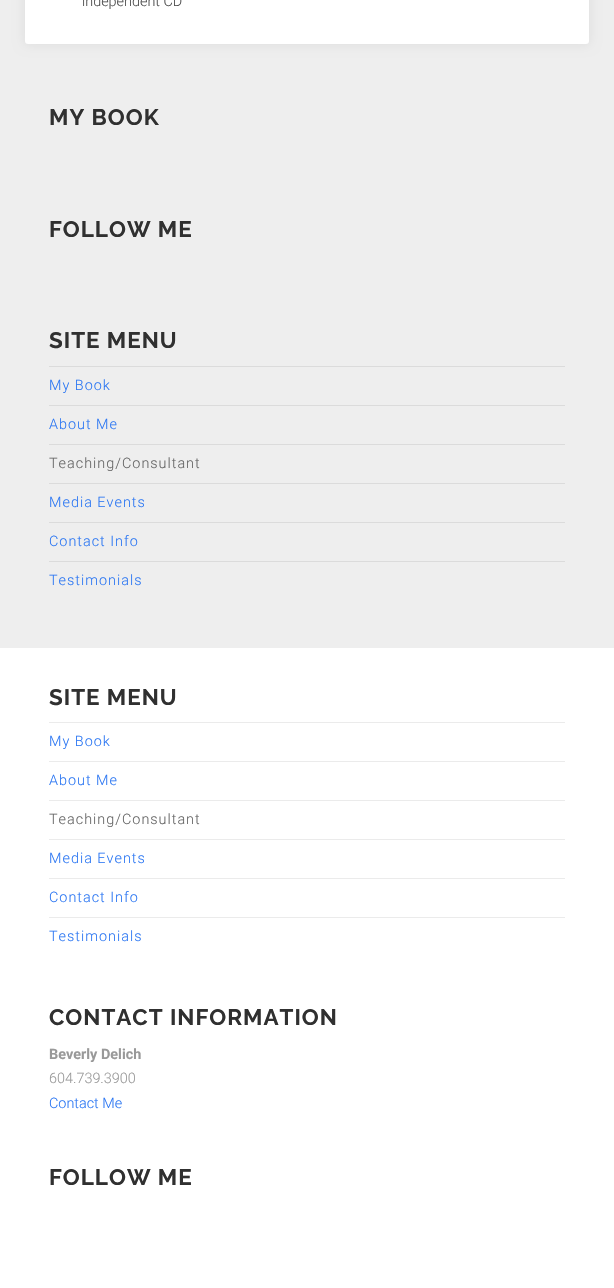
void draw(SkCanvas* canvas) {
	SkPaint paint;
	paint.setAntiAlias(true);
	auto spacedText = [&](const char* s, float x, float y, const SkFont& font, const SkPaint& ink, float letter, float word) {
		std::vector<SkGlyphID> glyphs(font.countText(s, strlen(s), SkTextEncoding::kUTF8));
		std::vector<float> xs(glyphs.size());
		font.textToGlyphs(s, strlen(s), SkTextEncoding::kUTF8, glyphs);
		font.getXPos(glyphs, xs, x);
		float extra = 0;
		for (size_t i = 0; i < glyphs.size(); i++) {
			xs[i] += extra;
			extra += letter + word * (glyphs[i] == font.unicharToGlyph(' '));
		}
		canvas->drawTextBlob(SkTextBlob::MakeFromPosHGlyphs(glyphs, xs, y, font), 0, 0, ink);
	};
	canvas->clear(0xffeeeeee);
	paint.setColor(0x14000000);
	paint.setMaskFilter(SkMaskFilter::MakeBlur(kNormal_SkBlurStyle, 6));
	canvas->drawRoundRect(SkRect::MakeXYWH(25, -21, 564, 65), 3, 3, paint);
	paint.setMaskFilter(nullptr);
	paint.setColor(0xffffffff);
	canvas->drawRoundRect(SkRect::MakeXYWH(25, -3, 564, 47), 3, 3, paint);
	SkFont f1(fontMgr->matchFamilyStyle("Roboto", SkFontStyle(300, SkFontStyle::kNormal_Width, SkFontStyle::kUpright_Slant)), 14.4);
	f1.setSubpixel(true);
	paint.setColor(0xff4d4d4d);
	canvas->drawString("independent CD", 82, 6, f1, paint);
	SkFont f2(fontMgr->matchFamilyStyle("Raleway", SkFontStyle::Bold()), 22.4);
	f2.setSubpixel(true);
	paint.setColor(0xff303030);
	spacedText("MY BOOK", 49, 125, f2, paint, 1, 0);
	spacedText("FOLLOW ME", 49, 237, f2, paint, 1, 0);
	spacedText("SITE MENU", 49, 348, f2, paint, 1, 0);
	paint.setColor(0xffdbdbdb);
	canvas->drawRect(SkRect::MakeXYWH(49, 366, 516, 1), paint);
	paint.setColor(0xff2c77f3);
	spacedText("My Book", 49, 390, f1, paint, 1, 0);
	paint.setColor(0xffdbdbdb);
	canvas->drawRect(SkRect::MakeXYWH(49, 405, 516, 1), paint);
	paint.setColor(0xff2c77f3);
	spacedText("About Me", 49, 429, f1, paint, 1, 0);
	paint.setColor(0xffdbdbdb);
	canvas->drawRect(SkRect::MakeXYWH(49, 444, 516, 1), paint);
	paint.setColor(0xff666666);
	spacedText("Teaching/Consultant", 49, 468, f1, paint, 1, 0);
	paint.setColor(0xffdbdbdb);
	canvas->drawRect(SkRect::MakeXYWH(49, 483, 516, 1), paint);
	paint.setColor(0xff2c77f3);
	spacedText("Media Events", 49, 507, f1, paint, 1, 0);
	paint.setColor(0xffdbdbdb);
	canvas->drawRect(SkRect::MakeXYWH(49, 522, 516, 1), paint);
	paint.setColor(0xff2c77f3);
	spacedText("Contact Info", 49, 546, f1, paint, 1, 0);
	paint.setColor(0xffdbdbdb);
	canvas->drawRect(SkRect::MakeXYWH(49, 561, 516, 1), paint);
	paint.setColor(0xff2c77f3);
	spacedText("Testimonials", 49, 585, f1, paint, 1, 0);
	paint.setColor(0xffffffff);
	canvas->drawRect(SkRect::MakeXYWH(0, 648, 614, 640), paint);
	paint.setColor(0xff303030);
	spacedText("SITE MENU", 49, 705, f2, paint, 1, 0);
	paint.setColor(0xffebebeb);
	canvas->drawRect(SkRect::MakeXYWH(49, 722, 516, 1), paint);
	paint.setColor(0xff2c77f3);
	spacedText("My Book", 49, 746, f1, paint, 1, 0);
	paint.setColor(0xffebebeb);
	canvas->drawRect(SkRect::MakeXYWH(49, 761, 516, 1), paint);
	paint.setColor(0xff2c77f3);
	spacedText("About Me", 49, 785, f1, paint, 1, 0);
	paint.setColor(0xffebebeb);
	canvas->drawRect(SkRect::MakeXYWH(49, 800, 516, 1), paint);
	paint.setColor(0xff666666);
	spacedText("Teaching/Consultant", 49, 824, f1, paint, 1, 0);
	paint.setColor(0xffebebeb);
	canvas->drawRect(SkRect::MakeXYWH(49, 839, 516, 1), paint);
	paint.setColor(0xff2c77f3);
	spacedText("Media Events", 49, 863, f1, paint, 1, 0);
	paint.setColor(0xffebebeb);
	canvas->drawRect(SkRect::MakeXYWH(49, 878, 516, 1), paint);
	paint.setColor(0xff2c77f3);
	spacedText("Contact Info", 49, 902, f1, paint, 1, 0);
	paint.setColor(0xffebebeb);
	canvas->drawRect(SkRect::MakeXYWH(49, 917, 516, 1), paint);
	paint.setColor(0xff2c77f3);
	spacedText("Testimonials", 49, 941, f1, paint, 1, 0);
	paint.setColor(0xff303030);
	spacedText("CONTACT INFORMATION", 49, 1025, f2, paint, 1, 0);
	SkFont f3(fontMgr->matchFamilyStyle("Roboto", SkFontStyle::Bold()), 14.4);
	f3.setSubpixel(true);
	paint.setColor(0xff999999);
	canvas->drawString("Beverly Delich", 49, 1059, f3, paint);
	canvas->drawString("604.739.3900", 49, 1083, f1, paint);
	paint.setColor(0xff2c77f3);
	canvas->drawString("Contact Me", 49, 1108, f1, paint);
	paint.setColor(0xff303030);
	spacedText("FOLLOW ME", 49, 1185, f2, paint, 1, 0);
}
